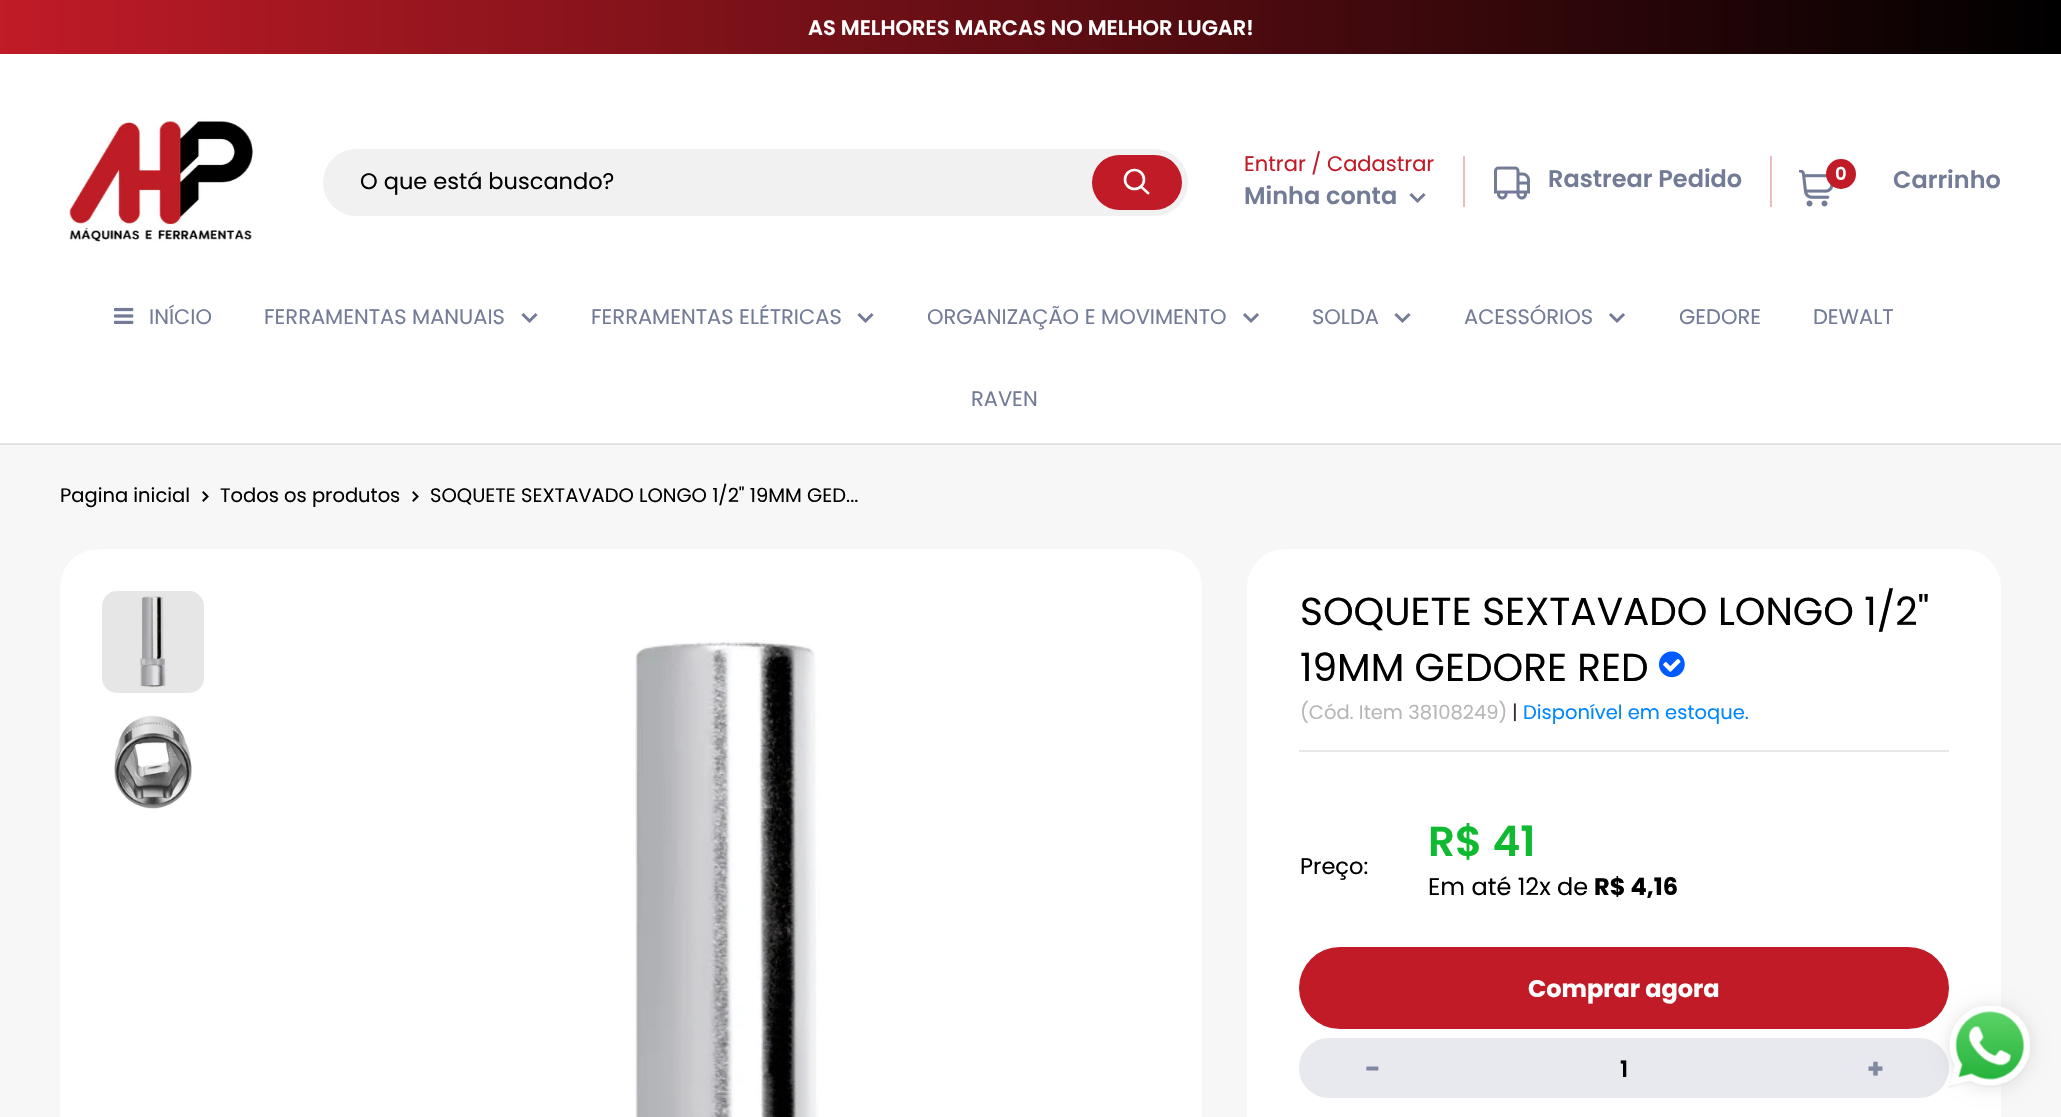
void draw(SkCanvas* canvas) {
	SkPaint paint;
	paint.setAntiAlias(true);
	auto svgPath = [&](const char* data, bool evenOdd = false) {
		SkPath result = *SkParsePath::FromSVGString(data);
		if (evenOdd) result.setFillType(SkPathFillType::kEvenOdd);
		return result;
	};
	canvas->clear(0xfff7f7f7);
	paint.setColor(0xffdedede);
	canvas->drawRect(SkRect::MakeXYWH(0, 444, 2061, 1), paint);
	{
		const SkColor colors[] = {0xffc01b27, 0xff000000};
		const float stops[] = {0, 1};
		const SkPoint ends[] = {{0, 27}, {2061, 27}};
		paint.setShader(SkGradientShader::MakeLinear(ends, colors, stops, 2, SkTileMode::kClamp));
		paint.setAlpha(255);
	}
	canvas->drawRect(SkRect::MakeXYWH(0, 0, 2061, 54), paint);
	SkFont f1(fontMgr->matchFamilyStyle("Poppins", SkFontStyle(600, SkFontStyle::kNormal_Width, SkFontStyle::kUpright_Slant)), 21);
	f1.setSubpixel(true);
	paint.setShader(nullptr);
	paint.setColor(0xffffffff);
	canvas->drawString("AS MELHORES MARCAS NO MELHOR LUGAR!", 808, 35, f1, paint);
	canvas->drawRect(SkRect::MakeXYWH(0, 54, 2061, 389), paint);
	canvas->drawImageRect(SkImages::DeferredFromEncodedData(SkData::MakeFromFileName("img1.png")), SkRect::MakeXYWH(69, 119, 184, 124), SkSamplingOptions());
	paint.setColor(0xfff1f1f1);
	canvas->drawRoundRect(SkRect::MakeXYWH(323, 149, 865, 67), 33.5, 33.5, paint);
	SkFont f2(fontMgr->matchFamilyStyle("Poppins", SkFontStyle::Normal()), 22.5);
	f2.setSubpixel(true);
	paint.setColor(0xff000000);
	canvas->drawString("O que está buscando?", 360, 189, f2, paint);
	paint.setColor(0xffc01b27);
	canvas->drawRoundRect(SkRect::MakeXYWH(1092, 155, 90, 55), 27.5, 27.5, paint);
	paint.setStroke(true);
	paint.setStrokeWidth(2.6);
	paint.setStrokeCap(SkPaint::kSquare_Cap);
	paint.setColor(0xffffffff);
	canvas->drawPath(svgPath("M1148 193L1141.5 187"), paint);
	paint.setStrokeCap(SkPaint::kButt_Cap);
	canvas->drawCircle(1134.5, 179.5, 9.5, paint);
	SkFont f3(fontMgr->matchFamilyStyle("Poppins", SkFontStyle::Normal()), 21);
	f3.setSubpixel(true);
	paint.setStroke(false);
	paint.setColor(0xffc01b27);
	canvas->drawString("Entrar / Cadastrar", 1244, 171, f3, paint);
	paint.setColor(0xffecbbbe);
	canvas->drawRect(SkRect::MakeXYWH(1463, 156, 2, 51), paint);
	SkFont f4(fontMgr->matchFamilyStyle("Poppins", SkFontStyle(600, SkFontStyle::kNormal_Width, SkFontStyle::kUpright_Slant)), 24);
	f4.setSubpixel(true);
	paint.setColor(0xff737b97);
	canvas->drawString("Minha conta", 1244, 204, f4, paint);
	paint.setStroke(true);
	paint.setStrokeWidth(3);
	paint.setStrokeCap(SkPaint::kSquare_Cap);
	canvas->drawPath(svgPath("M1423.5 195L1417.5 201L1411.5 195"), paint);
	canvas->drawImageRect(SkImages::DeferredFromEncodedData(SkData::MakeFromFileName("img2.png")), SkRect::MakeXYWH(1494, 166, 36, 34), SkSamplingOptions());
	paint.setStroke(false);
	canvas->drawString("Rastrear Pedido", 1548, 187, f4, paint);
	paint.setColor(0xffecbbbe);
	canvas->drawRect(SkRect::MakeXYWH(1770, 156, 2, 51), paint);
	canvas->drawImageRect(SkImages::DeferredFromEncodedData(SkData::MakeFromFileName("img3.png")), SkRect::MakeXYWH(1799, 170, 35, 37), SkSamplingOptions());
	paint.setColor(0xffc01b27);
	canvas->drawCircle(1841, 174, 15, paint);
	SkFont f5(fontMgr->matchFamilyStyle("Poppins", SkFontStyle(600, SkFontStyle::kNormal_Width, SkFontStyle::kUpright_Slant)), 18);
	f5.setSubpixel(true);
	paint.setColor(0xffffffff);
	canvas->drawString("0", 1835, 180, f5, paint);
	paint.setColor(0xff737b97);
	canvas->drawString("Carrinho", 1893, 188, f4, paint);
	paint.setColor(0xffe6e6e6);
	canvas->drawRect(SkRect::MakeXYWH(0, 443, 2061, 1), paint);
	canvas->drawImageRect(SkImages::DeferredFromEncodedData(SkData::MakeFromFileName("img4.png")), SkRect::MakeXYWH(114, 307, 20, 17), SkSamplingOptions());
	paint.setColor(0xff737b97);
	canvas->drawString("INÍCIO", 149, 324, f3, paint);
	canvas->drawString("FERRAMENTAS MANUAIS", 264, 324, f3, paint);
	paint.setStroke(true);
	canvas->drawPath(svgPath("M535.5 315L529.5 321L523.5 315"), paint);
	paint.setStroke(false);
	canvas->drawString("FERRAMENTAS ELÉTRICAS", 591, 324, f3, paint);
	paint.setStroke(true);
	canvas->drawPath(svgPath("M871.5 315L865.5 321L859.5 315"), paint);
	paint.setStroke(false);
	canvas->drawString("ORGANIZAÇÃO E MOVIMENTO", 927, 324, f3, paint);
	paint.setStroke(true);
	canvas->drawPath(svgPath("M1257 315L1251 321L1245 315"), paint);
	paint.setStroke(false);
	canvas->drawString("SOLDA", 1312, 324, f3, paint);
	paint.setStroke(true);
	canvas->drawPath(svgPath("M1408.5 315L1402.5 321L1396.5 315"), paint);
	paint.setStroke(false);
	canvas->drawString("ACESSÓRIOS", 1464, 324, f3, paint);
	paint.setStroke(true);
	canvas->drawPath(svgPath("M1623 315L1617 321L1611 315"), paint);
	paint.setStroke(false);
	canvas->drawString("GEDORE", 1679, 324, f3, paint);
	canvas->drawString("DEWALT", 1813, 324, f3, paint);
	canvas->drawString("RAVEN", 971, 406, f3, paint);
	SkFont f6(fontMgr->matchFamilyStyle("Poppins", SkFontStyle::Normal()), 19.5);
	f6.setSubpixel(true);
	paint.setColor(0xff000000);
	canvas->drawString("Pagina inicial", 60, 502, f6, paint);
	paint.setStroke(true);
	paint.setStrokeWidth(2);
	canvas->drawPath(svgPath("M203.5 492.5L207.5 496.5L203.5 500.5"), paint);
	paint.setStroke(false);
	canvas->drawString("Todos os produtos", 220, 502, f6, paint);
	paint.setStroke(true);
	canvas->drawPath(svgPath("M413.5 492.5L417.5 496.5L413.5 500.5"), paint);
	paint.setStroke(false);
	canvas->drawString("SOQUETE SEXTAVADO LONGO 1/2\" 19MM GED...", 430, 502, f6, paint);
	paint.setColor(0xffffffff);
	canvas->drawRoundRect(SkRect::MakeXYWH(60, 549, 1142, 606), 38, 38, paint);
	canvas->drawImageRect(SkImages::DeferredFromEncodedData(SkData::MakeFromFileName("img5.png")), SkRect::MakeXYWH(102, 591, 102, 102), SkSamplingOptions());
	canvas->drawImageRect(SkImages::DeferredFromEncodedData(SkData::MakeFromFileName("img6.png")), SkRect::MakeXYWH(114, 715, 78, 94), SkSamplingOptions());
	canvas->drawImageRect(SkImages::DeferredFromEncodedData(SkData::MakeFromFileName("img7.png")), SkRect::MakeXYWH(635, 640, 185, 477), SkSamplingOptions());
	canvas->drawRoundRect(SkRect::MakeXYWH(1247, 549, 754, 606), 38, 38, paint);
	SkFont f7(fontMgr->matchFamilyStyle("Poppins", SkFontStyle::Normal()), 39);
	f7.setSubpixel(true);
	paint.setColor(0xff000000);
	canvas->drawString("SOQUETE SEXTAVADO LONGO 1/2\"", 1300, 625, f7, paint);
	canvas->drawString("19MM GEDORE RED", 1300, 681, f7, paint);
	canvas->drawImageRect(SkImages::DeferredFromEncodedData(SkData::MakeFromFileName("img8.png")), SkRect::MakeXYWH(1659, 651, 26, 27), SkSamplingOptions());
	paint.setColor(0xffb7b7b7);
	canvas->drawString("(Cód. Item 38108249)", 1300, 719, f6, paint);
	paint.setColor(0xff3a2a2f);
	canvas->drawString("|", 1512, 719, f6, paint);
	paint.setColor(0xff0086ff);
	canvas->drawString("Disponível em estoque.", 1523, 719, f6, paint);
	paint.setColor(0xffe7e7e7);
	canvas->drawRect(SkRect::MakeXYWH(1299, 750, 650, 2), paint);
	paint.setColor(0xff000000);
	canvas->drawString("Preço:", 1300, 874, f2, paint);
	SkFont f8(fontMgr->matchFamilyStyle("Poppins", SkFontStyle(600, SkFontStyle::kNormal_Width, SkFontStyle::kUpright_Slant)), 42);
	f8.setSubpixel(true);
	paint.setColor(0xff0fb930);
	canvas->drawString("R$ 41", 1428, 856, f8, paint);
	SkFont f9(fontMgr->matchFamilyStyle("Poppins", SkFontStyle::Normal()), 24);
	f9.setSubpixel(true);
	paint.setColor(0xff000000);
	canvas->drawString("Em até 12x de", 1428, 895, f9, paint);
	SkFont f10(fontMgr->matchFamilyStyle("Poppins", SkFontStyle::Bold()), 24);
	f10.setSubpixel(true);
	canvas->drawString("R$ 4,16", 1594, 895, f10, paint);
	paint.setColor(0xffc01b27);
	canvas->drawRoundRect(SkRect::MakeXYWH(1299, 947, 650, 82), 41, 41, paint);
	paint.setColor(0xffffffff);
	canvas->drawString("Comprar agora", 1528, 997, f10, paint);
	paint.setColor(0xffe8e9ef);
	canvas->drawPath(svgPath("M1329 1038H1446V1098H1329C1312.5 1098 1299 1084.5 1299 1068C1299 1051.5 1312.5 1038 1329 1038Z"), paint);
	SkFont f11(fontMgr->matchFamilyStyle("Poppins", SkFontStyle::Bold()), 27);
	f11.setSubpixel(true);
	paint.setColor(0xff8188a1);
	canvas->drawString("-", 1365, 1078, f11, paint);
	paint.setColor(0xffe8e9ef);
	canvas->drawRect(SkRect::MakeXYWH(1446, 1038, 356, 60), paint);
	SkFont f12(fontMgr->matchFamilyStyle("Poppins", SkFontStyle(600, SkFontStyle::kNormal_Width, SkFontStyle::kUpright_Slant)), 22.5);
	f12.setSubpixel(true);
	paint.setColor(0xff000000);
	canvas->drawString("1", 1620, 1077, f12, paint);
	paint.setColor(0xffe8e9ef);
	canvas->drawPath(svgPath("M1802 1038H1919C1935.5 1038 1949 1051.5 1949 1068C1949 1084.5 1935.5 1098 1919 1098H1802Z"), paint);
	paint.setColor(0xff8188a1);
	canvas->drawString("+", 1867, 1078, f11, paint);
	paint.setColor(0x1a000000);
	paint.setMaskFilter(SkMaskFilter::MakeBlur(kNormal_SkBlurStyle, 9));
	canvas->drawRoundRect(SkRect::MakeXYWH(1949, 1005, 82, 83), 41, 41, paint);
	paint.setMaskFilter(nullptr);
	canvas->drawImageRect(SkImages::DeferredFromEncodedData(SkData::MakeFromFileName("img9.png")), SkRect::MakeXYWH(1948, 1006, 82, 82), SkSamplingOptions());
}
